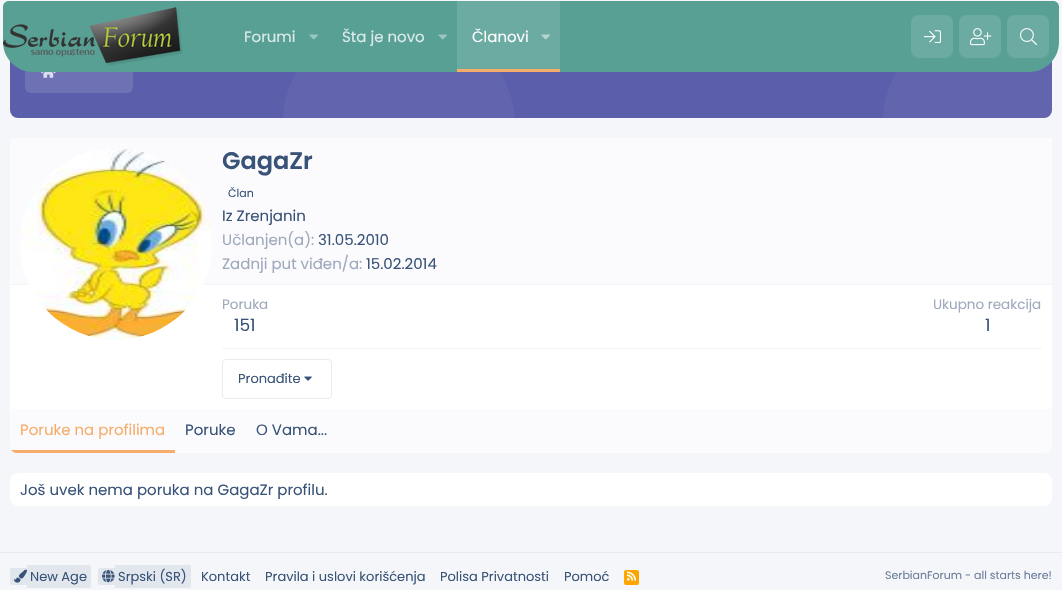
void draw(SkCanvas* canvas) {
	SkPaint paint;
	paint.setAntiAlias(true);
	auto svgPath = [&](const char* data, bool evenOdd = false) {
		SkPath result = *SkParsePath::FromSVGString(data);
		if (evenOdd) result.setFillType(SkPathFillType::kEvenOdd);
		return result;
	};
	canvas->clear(0xfff5f6fa);
	paint.setColor(0xff5b5eab);
	canvas->drawRoundRect(SkRect::MakeXYWH(10, 38, 1042, 80), 8, 8, paint);
	canvas->drawImageRect(SkImages::DeferredFromEncodedData(SkData::MakeFromFileName("img7.png")), SkRect::MakeXYWH(283, 61, 769, 57), SkSamplingOptions());
	paint.setColor(0xff6f71b5);
	canvas->drawRoundRect(SkRect::MakeXYWH(25, 53, 108, 40), 6, 6, paint);
	paint.setColor(0xff58a094);
	canvas->drawPath(svgPath("M9 1H1053C1056.5 1 1059 3.5 1059 7V42C1059 58.5 1045.5 72 1029 72H33C16.5 72 3 58.5 3 42V7C3 3.5 5.5 1 9 1Z"), paint);
	canvas->drawImageRect(SkImages::DeferredFromEncodedData(SkData::MakeFromFileName("img1.png")), SkRect::MakeXYWH(3, 7, 180, 59), SkSamplingOptions());
	SkFont f1(fontMgr->matchFamilyStyle("Poppins", SkFontStyle::Normal()), 15);
	f1.setSubpixel(true);
	paint.setColor(0xffddebe9);
	canvas->drawString("Forumi", 244, 42, f1, paint);
	canvas->drawImageRect(SkImages::DeferredFromEncodedData(SkData::MakeFromFileName("img2.png")), SkRect::MakeXYWH(309, 34, 9, 6), SkSamplingOptions());
	canvas->drawString("Šta je novo", 342, 42, f1, paint);
	canvas->drawImageRect(SkImages::DeferredFromEncodedData(SkData::MakeFromFileName("img2.png")), SkRect::MakeXYWH(438, 34, 9, 6), SkSamplingOptions());
	paint.setColor(0xff6caba1);
	canvas->drawRect(SkRect::MakeXYWH(457, 1, 103, 68), paint);
	paint.setColor(0xfff7ad6a);
	canvas->drawRect(SkRect::MakeXYWH(457, 69, 103, 3), paint);
	paint.setColor(0xfffefefe);
	canvas->drawString("Članovi", 472, 42, f1, paint);
	canvas->drawImageRect(SkImages::DeferredFromEncodedData(SkData::MakeFromFileName("img3.png")), SkRect::MakeXYWH(541, 34, 9, 6), SkSamplingOptions());
	paint.setColor(0xff6caba1);
	canvas->drawRoundRect(SkRect::MakeXYWH(911, 15, 42, 43), 8, 8, paint);
	canvas->drawImageRect(SkImages::DeferredFromEncodedData(SkData::MakeFromFileName("img4.png")), SkRect::MakeXYWH(924, 30, 17, 13), SkSamplingOptions());
	canvas->drawRoundRect(SkRect::MakeXYWH(959, 15, 42, 43), 8, 8, paint);
	canvas->drawImageRect(SkImages::DeferredFromEncodedData(SkData::MakeFromFileName("img5.png")), SkRect::MakeXYWH(970, 28, 22, 18), SkSamplingOptions());
	canvas->drawRoundRect(SkRect::MakeXYWH(1007, 15, 42, 43), 8, 8, paint);
	canvas->drawImageRect(SkImages::DeferredFromEncodedData(SkData::MakeFromFileName("img6.png")), SkRect::MakeXYWH(1020, 28, 17, 18), SkSamplingOptions());
	canvas->drawImageRect(SkImages::DeferredFromEncodedData(SkData::MakeFromFileName("img8.png")), SkRect::MakeXYWH(41, 72, 15, 6), SkSamplingOptions());
	paint.setColor(0xffffffff);
	canvas->drawRoundRect(SkRect::MakeXYWH(10, 138, 1042, 315), 8, 8, paint);
	paint.setColor(0xfffbfbfd);
	canvas->drawRect(SkRect::MakeXYWH(10, 138, 1042, 146), paint);
	paint.setColor(0xfff3f4f6);
	canvas->drawRect(SkRect::MakeXYWH(10, 284, 1042, 1), paint);
	paint.setColor(0xffffffff);
	canvas->drawCircle(116, 244, 96, paint);
	canvas->drawImageRect(SkImages::DeferredFromEncodedData(SkData::MakeFromFileName("img9.png")), SkRect::MakeXYWH(20, 148, 191, 192), SkSamplingOptions());
	SkFont f2(fontMgr->matchFamilyStyle("Poppins", SkFontStyle(600, SkFontStyle::kNormal_Width, SkFontStyle::kUpright_Slant)), 24);
	f2.setSubpixel(true);
	paint.setColor(0xff385377);
	canvas->drawString("GagaZr", 222, 169, f2, paint);
	SkFont f3(fontMgr->matchFamilyStyle("Poppins", SkFontStyle::Normal()), 11);
	f3.setSubpixel(true);
	canvas->drawString("Član", 228, 197, f3, paint);
	canvas->drawString("Iz Zrenjanin", 222, 221, f1, paint);
	paint.setColor(0xff9fa9bc);
	canvas->drawString("Učlanjen(a):", 222, 245, f1, paint);
	paint.setColor(0xff385377);
	canvas->drawString("31.05.2010", 318, 245, f1, paint);
	paint.setColor(0xff9fa9bc);
	canvas->drawString("Zadnji put viđen/a:", 222, 269, f1, paint);
	paint.setColor(0xff385377);
	canvas->drawString("15.02.2014", 366, 269, f1, paint);
	SkFont f4(fontMgr->matchFamilyStyle("Poppins", SkFontStyle::Normal()), 13.5);
	f4.setSubpixel(true);
	paint.setColor(0xff9fa9bc);
	canvas->drawString("Poruka", 222, 309, f4, paint);
	SkFont f5(fontMgr->matchFamilyStyle("Poppins", SkFontStyle::Normal()), 17);
	f5.setSubpixel(true);
	paint.setColor(0xff385377);
	canvas->drawString("151", 234, 331, f5, paint);
	paint.setColor(0xff9fa9bc);
	canvas->drawString("Ukupno reakcija", 933, 309, f4, paint);
	paint.setColor(0xff385377);
	canvas->drawString("1", 985, 331, f5, paint);
	paint.setColor(0xfff3f4f6);
	canvas->drawRect(SkRect::MakeXYWH(222, 348, 820, 1), paint);
	paint.setStroke(true);
	paint.setStrokeWidth(1);
	paint.setColor(0xffeaebf0);
	canvas->drawRoundRect(SkRect::MakeXYWH(222.5, 359.5, 109, 39), 3.5, 3.5, paint);
	SkFont f6(fontMgr->matchFamilyStyle("Poppins", SkFontStyle::Normal()), 13);
	f6.setSubpixel(true);
	paint.setStroke(false);
	paint.setColor(0xff385377);
	canvas->drawString("Pronađite", 238, 383, f6, paint);
	canvas->drawImageRect(SkImages::DeferredFromEncodedData(SkData::MakeFromFileName("img10.png")), SkRect::MakeXYWH(304, 376, 8, 5), SkSamplingOptions());
	paint.setColor(0xfffbfbfd);
	canvas->drawPath(svgPath("M10 409H1052V446C1052 450 1049 453 1045 453H17C13 453 10 450 10 446Z"), paint);
	canvas->save();
	canvas->clipPath(svgPath("M10 409H1052V446C1052 450 1049 453 1045 453H17C13 453 10 450 10 446Z"), true);
	paint.setColor(0xfff7ad6a);
	canvas->drawRect(SkRect::MakeXYWH(10, 450, 165, 3), paint);
	canvas->restore();
	canvas->drawString("Poruke na profilima", 20, 435, f1, paint);
	paint.setColor(0xff385377);
	canvas->drawString("Poruke", 185, 435, f1, paint);
	canvas->drawString("O Vama...", 256, 435, f1, paint);
	paint.setColor(0xffffffff);
	canvas->drawRoundRect(SkRect::MakeXYWH(10, 473, 1042, 33), 8, 8, paint);
	paint.setColor(0xff385377);
	canvas->drawString("Još uvek nema poruka na GagaZr profilu.", 20, 495, f1, paint);
	paint.setColor(0xffeaebf0);
	canvas->drawRect(SkRect::MakeXYWH(0, 552, 1062, 1), paint);
	paint.setColor(0xffe2e6ed);
	canvas->drawPath(svgPath("M12 568H27V585H12C11 585 10 584 10 583V570C10 569 11 568 12 568Z"), paint);
	canvas->drawPath(svgPath("M27 565H89C90 565 91 566 91 567V586C91 587 90 588 89 588H27Z"), paint);
	canvas->drawImageRect(SkImages::DeferredFromEncodedData(SkData::MakeFromFileName("img11.png")), SkRect::MakeXYWH(14, 569, 13, 14), SkSamplingOptions());
	paint.setColor(0xff385377);
	canvas->drawString("New Age", 30, 581, f6, paint);
	paint.setColor(0xffe2e6ed);
	canvas->drawPath(svgPath("M100 568H115V585H100C99 585 98 584 98 583V570C98 569 99 568 100 568Z"), paint);
	canvas->drawPath(svgPath("M115 565H189C190 565 191 566 191 567V586C191 587 190 588 189 588H115Z"), paint);
	canvas->drawImageRect(SkImages::DeferredFromEncodedData(SkData::MakeFromFileName("img12.png")), SkRect::MakeXYWH(102, 569, 13, 14), SkSamplingOptions());
	paint.setColor(0xff385377);
	canvas->drawString("Srpski (SR)", 118, 581, f6, paint);
	canvas->drawString("Kontakt", 201, 581, f6, paint);
	canvas->drawString("Pravila i uslovi korišćenja", 265, 581, f6, paint);
	canvas->drawString("Polisa Privatnosti", 440, 581, f6, paint);
	canvas->drawString("Pomoć", 564, 581, f6, paint);
	paint.setColor(0xffffa500);
	canvas->drawRoundRect(SkRect::MakeXYWH(624, 570, 15, 15), 2, 2, paint);
	canvas->drawImageRect(SkImages::DeferredFromEncodedData(SkData::MakeFromFileName("img13.png")), SkRect::MakeXYWH(627, 571, 10, 10), SkSamplingOptions());
	paint.setColor(0xff6c7e9a);
	canvas->drawString("SerbianForum - all starts here!", 885, 579, f3, paint);
}
